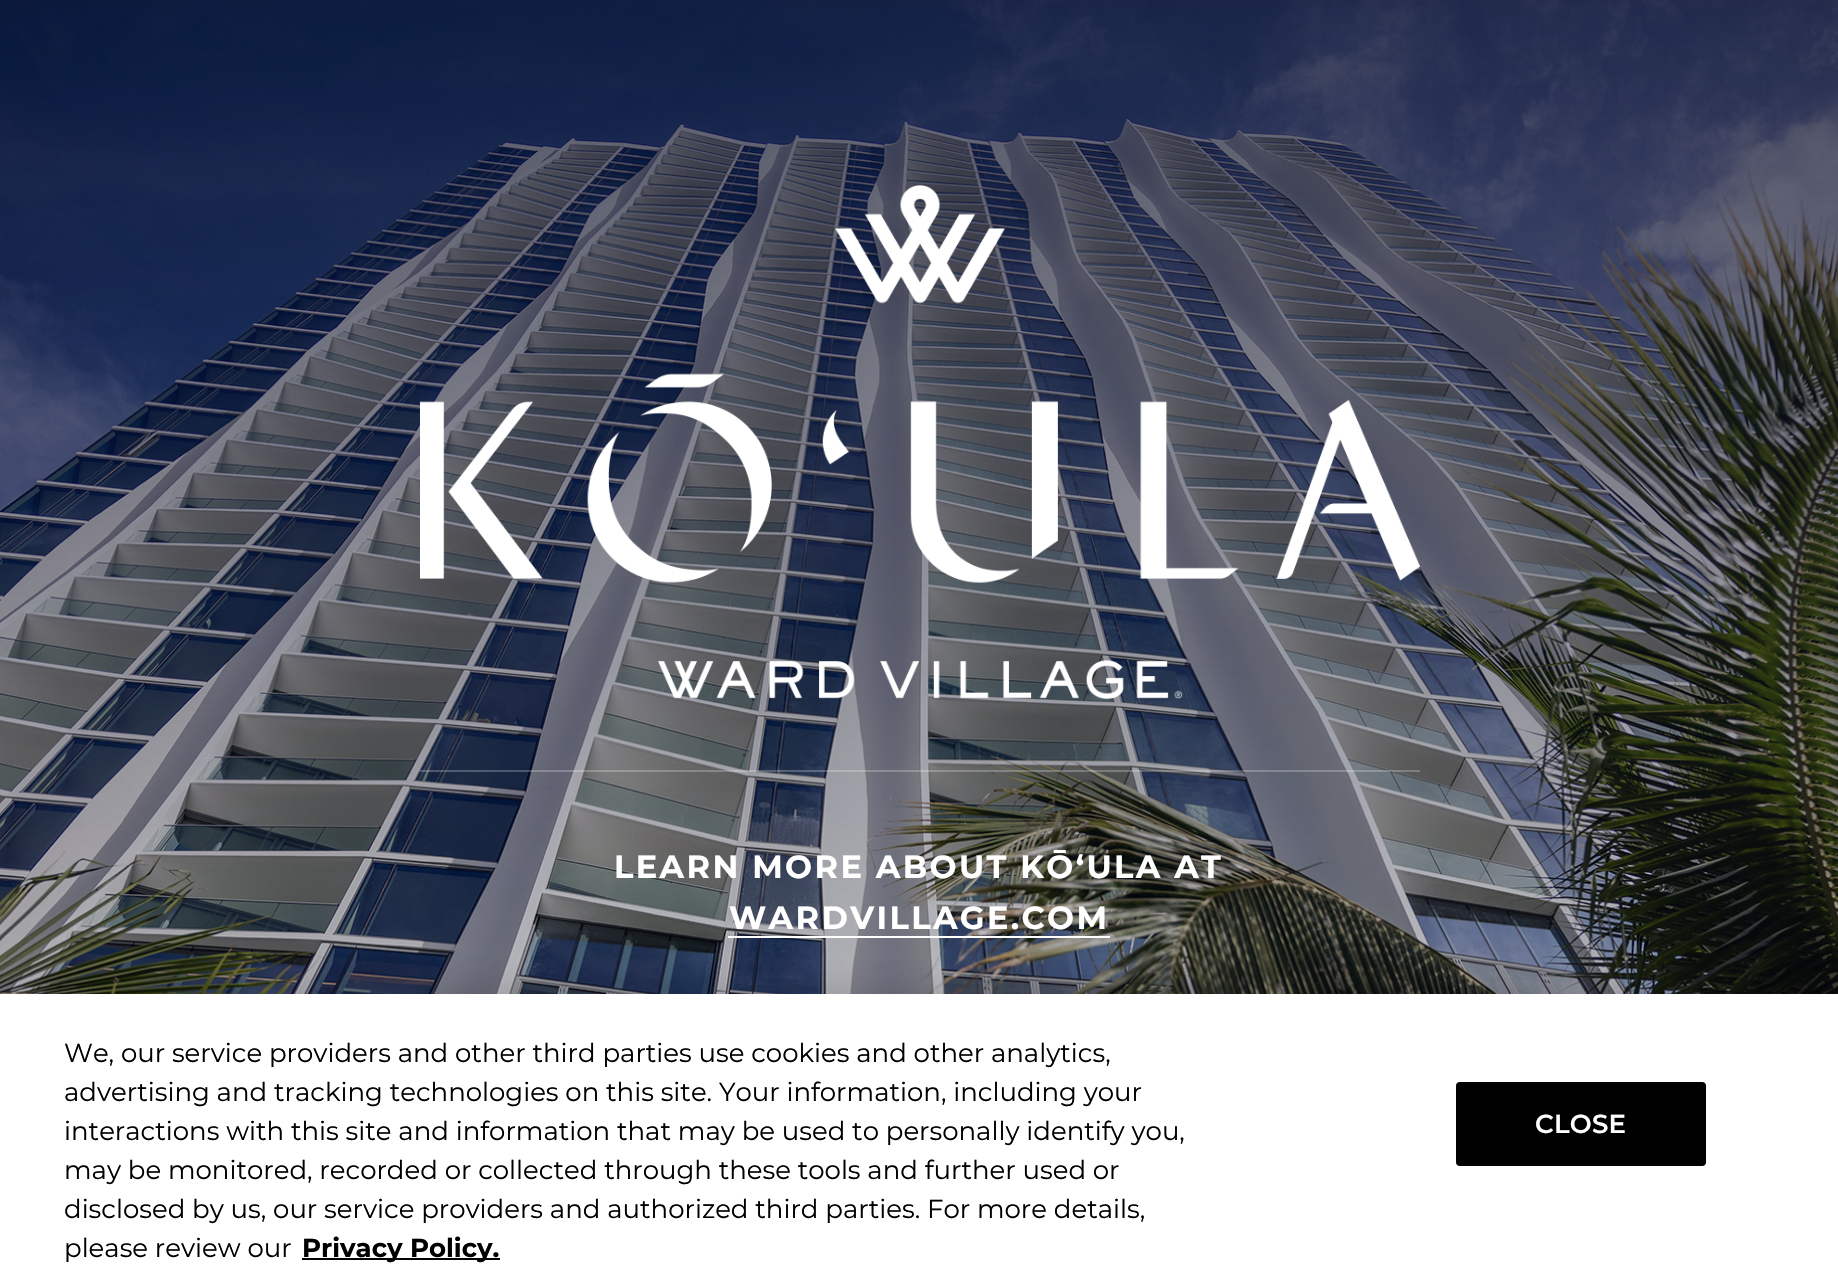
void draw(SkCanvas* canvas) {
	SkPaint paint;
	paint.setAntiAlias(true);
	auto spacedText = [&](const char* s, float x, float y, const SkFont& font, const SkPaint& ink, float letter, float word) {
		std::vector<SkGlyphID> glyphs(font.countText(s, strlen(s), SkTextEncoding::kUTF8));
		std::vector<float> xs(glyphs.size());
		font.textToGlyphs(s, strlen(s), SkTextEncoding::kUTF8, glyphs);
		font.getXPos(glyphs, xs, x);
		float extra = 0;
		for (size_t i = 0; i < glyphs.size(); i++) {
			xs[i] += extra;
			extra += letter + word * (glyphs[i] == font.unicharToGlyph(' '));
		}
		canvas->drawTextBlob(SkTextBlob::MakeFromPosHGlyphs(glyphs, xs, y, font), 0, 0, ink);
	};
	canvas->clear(0xffffffff);
	canvas->drawImageRect(SkImages::DeferredFromEncodedData(SkData::MakeFromFileName("img1.png")), SkRect::MakeXYWH(0, 0, 1838, 994), SkSamplingOptions());
	paint.setColor(0x3bffffff);
	canvas->drawRect(SkRect::MakeXYWH(420, 770, 1000, 2), paint);
	canvas->drawImageRect(SkImages::DeferredFromEncodedData(SkData::MakeFromFileName("img2.png")), SkRect::MakeXYWH(420, 185, 1000, 515), SkSamplingOptions());
	SkFont f1(fontMgr->matchFamilyStyle("Montserrat", SkFontStyle::Bold()), 32);
	f1.setSubpixel(true);
	paint.setColor(0xffffffff);
	spacedText("LEARN MORE ABOUT KŌ‘ULA AT", 614, 878, f1, paint, 2.4, 0);
	spacedText("WARDVILLAGE.COM", 729, 929, f1, paint, 2.4, 0);
	canvas->drawRect(SkRect::MakeXYWH(728, 936, 382, 2), paint);
	paint.setColor(0x33000000);
	paint.setMaskFilter(SkMaskFilter::MakeBlur(kNormal_SkBlurStyle, 18));
	canvas->drawRect(SkRect::MakeXYWH(0, 994, 1838, 294), paint);
	paint.setMaskFilter(nullptr);
	paint.setColor(0xffffffff);
	canvas->drawRect(SkRect::MakeXYWH(0, 994, 1838, 294), paint);
	SkFont f2(fontMgr->matchFamilyStyle("Montserrat", SkFontStyle(100, SkFontStyle::kNormal_Width, SkFontStyle::kUpright_Slant)), 26);
	f2.setSubpixel(true);
	paint.setColor(0xff000000);
	canvas->drawString("We, our service providers and other third parties use cookies and other analytics,", 64, 1062, f2, paint);
	canvas->drawString("advertising and tracking technologies on this site. Your information, including your", 64, 1101, f2, paint);
	canvas->drawString("interactions with this site and information that may be used to personally identify you,", 64, 1140, f2, paint);
	canvas->drawString("may be monitored, recorded or collected through these tools and further used or", 64, 1179, f2, paint);
	canvas->drawString("disclosed by us, our service providers and authorized third parties. For more details,", 64, 1218, f2, paint);
	canvas->drawString("please review our", 64, 1257, f2, paint);
	canvas->drawRect(SkRect::MakeXYWH(302, 1258, 198, 2), paint);
	SkFont f3(fontMgr->matchFamilyStyle("Montserrat", SkFontStyle::Bold()), 26);
	f3.setSubpixel(true);
	canvas->drawString("Privacy Policy.", 302, 1257, f3, paint);
	canvas->drawRoundRect(SkRect::MakeXYWH(1457, 1083, 248, 82), 3, 3, paint);
	paint.setStroke(true);
	paint.setStrokeWidth(2);
	canvas->drawRoundRect(SkRect::MakeXYWH(1457, 1083, 248, 82), 3, 3, paint);
	SkFont f4(fontMgr->matchFamilyStyle("Montserrat", SkFontStyle(600, SkFontStyle::kNormal_Width, SkFontStyle::kUpright_Slant)), 26);
	f4.setSubpixel(true);
	paint.setStroke(false);
	paint.setColor(0xffffffff);
	spacedText("CLOSE", 1535, 1133, f4, paint, 0.25, 0);
}
